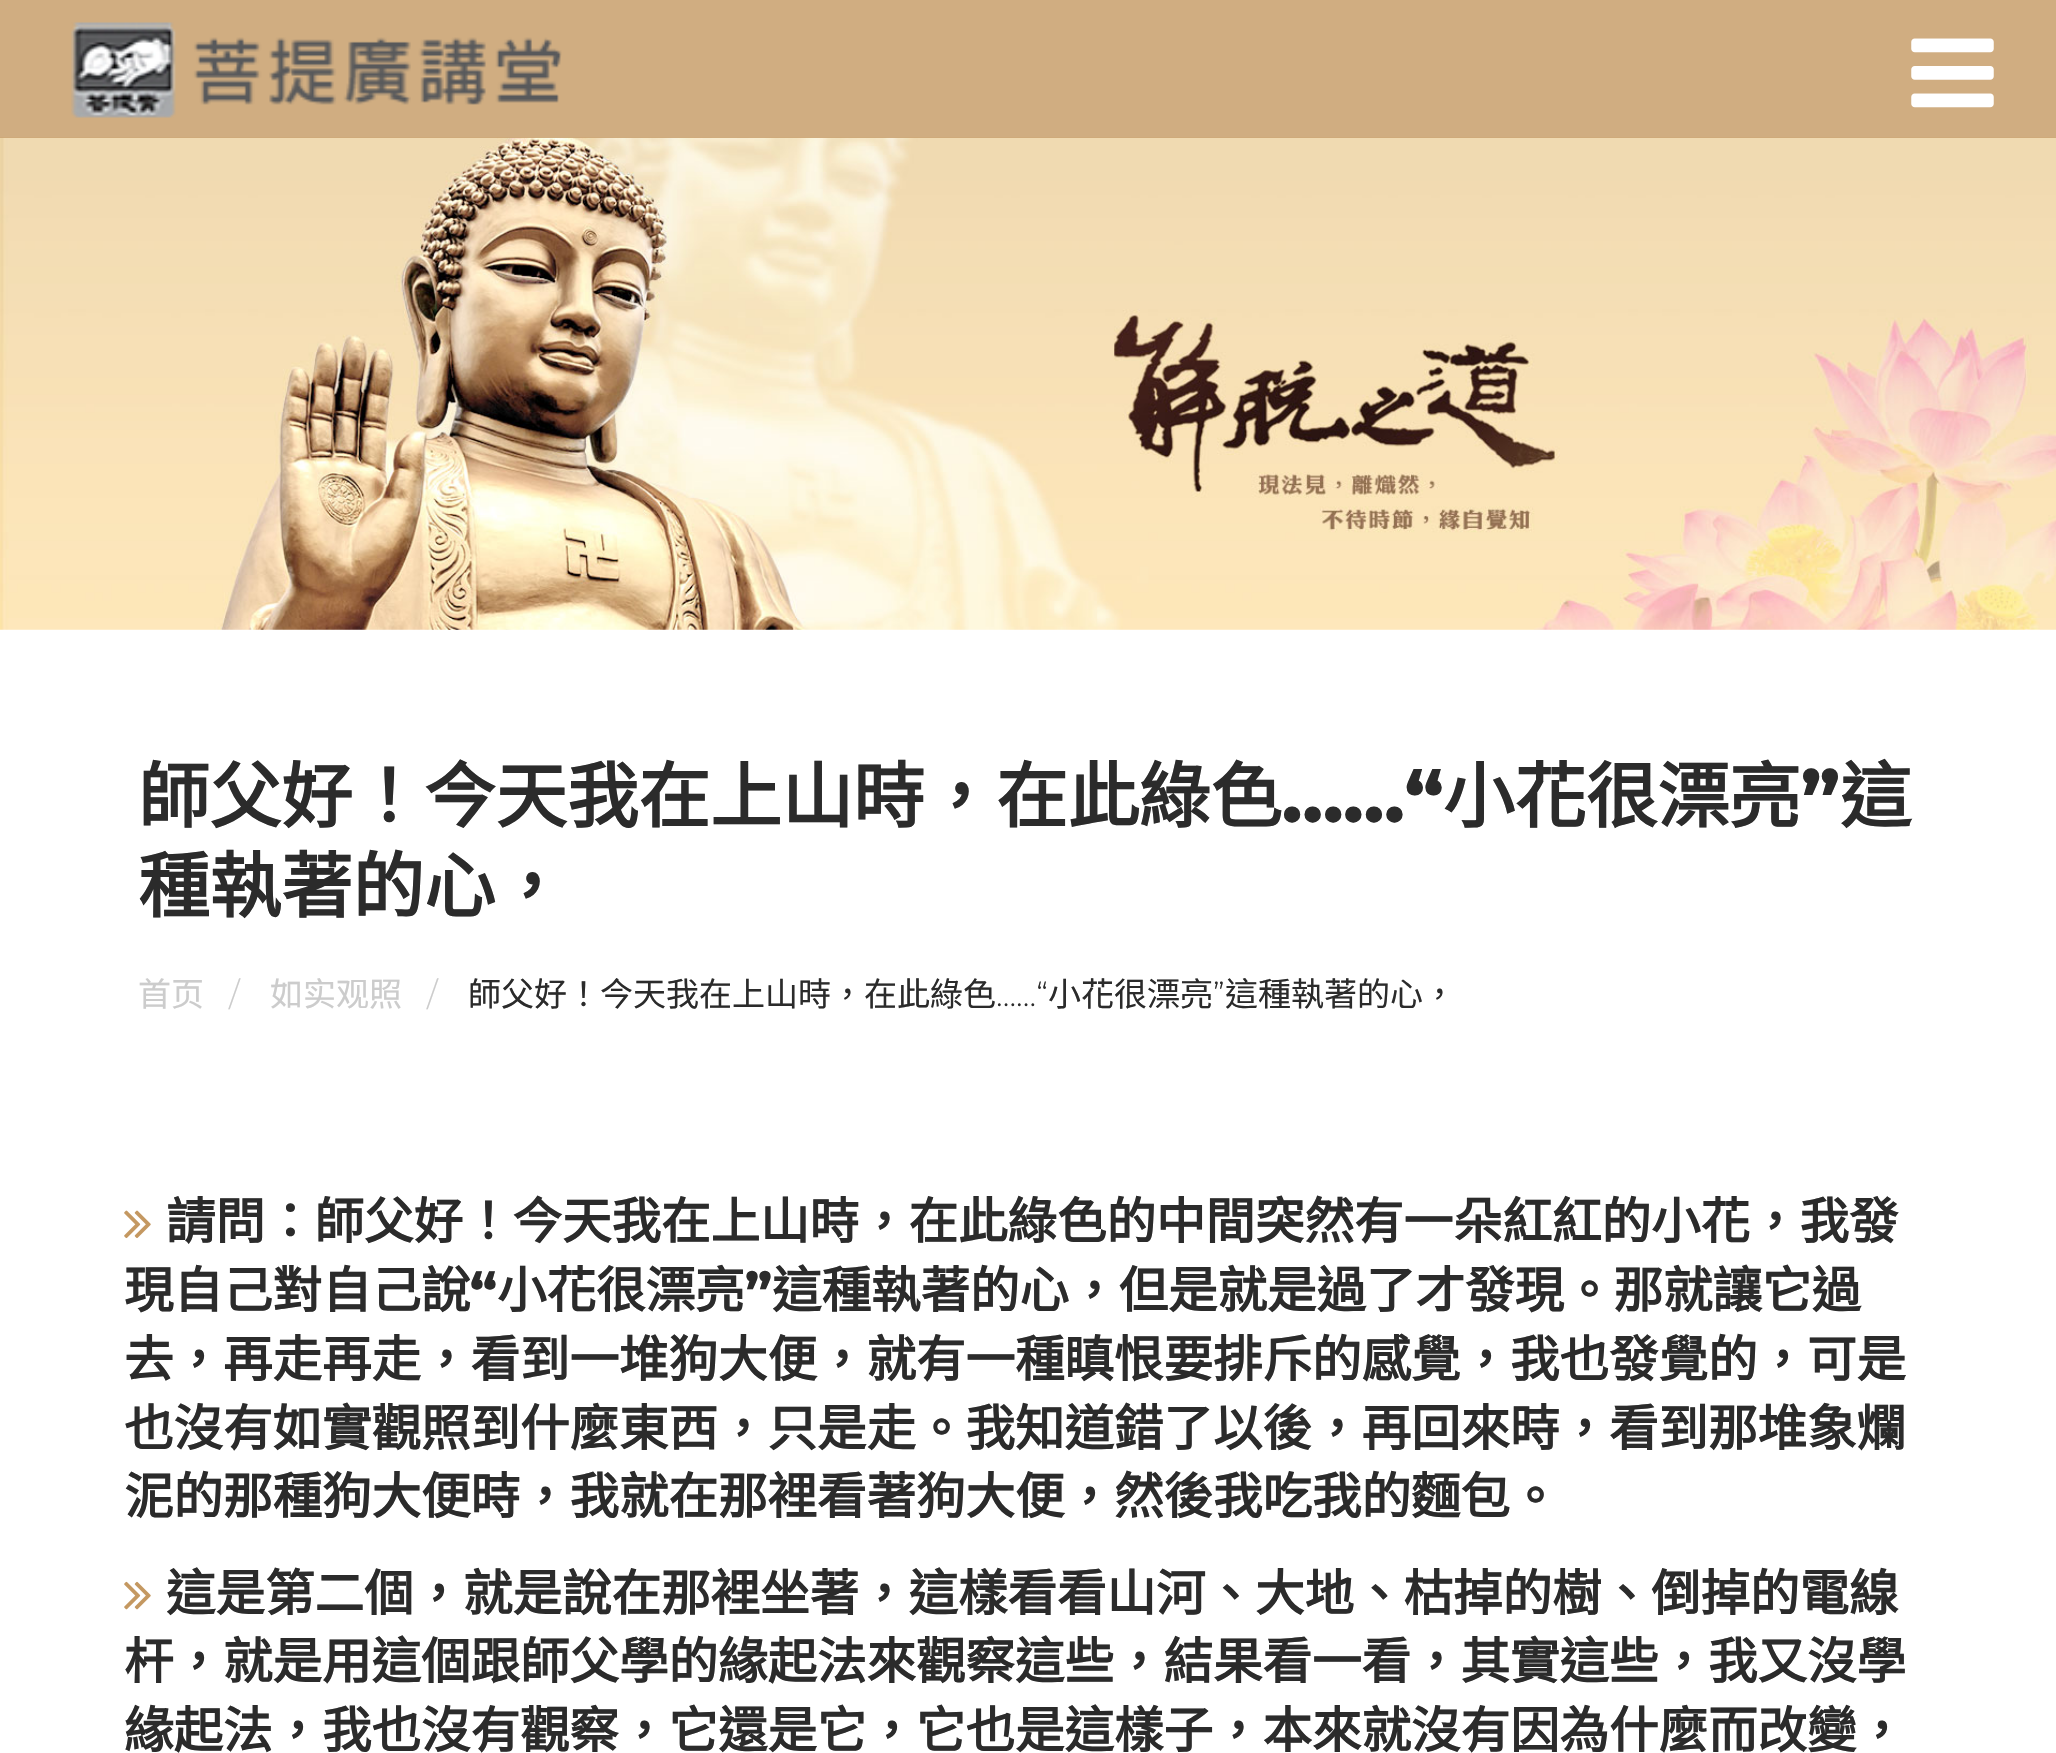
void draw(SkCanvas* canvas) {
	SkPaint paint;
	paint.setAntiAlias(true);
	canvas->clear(0xffffffff);
	canvas->drawImageRect(SkImages::DeferredFromEncodedData(SkData::MakeFromFileName("img3.png")), SkRect::MakeXYWH(0, 137, 2056, 493), SkSamplingOptions());
	paint.setColor(0xccc49861);
	canvas->drawRect(SkRect::MakeXYWH(0, 0, 2056, 138), paint);
	canvas->drawImageRect(SkImages::DeferredFromEncodedData(SkData::MakeFromFileName("img1.png")), SkRect::MakeXYWH(71, 22, 491, 96), SkSamplingOptions());
	canvas->drawImageRect(SkImages::DeferredFromEncodedData(SkData::MakeFromFileName("img2.png")), SkRect::MakeXYWH(1911, 38, 83, 70), SkSamplingOptions());
	SkFont f1(fontMgr->matchFamilyStyle("Noto Sans CJK TC", SkFontStyle::Bold()), 71.5);
	f1.setSubpixel(true);
	paint.setColor(0xff2b2b2b);
	canvas->drawString("師父好！今天我在上山時，在此綠色", 138, 822, f1, paint);
	SkFont f2(fontMgr->matchFamilyStyle("Montserrat", SkFontStyle(800, SkFontStyle::kNormal_Width, SkFontStyle::kUpright_Slant)), 71.5);
	f2.setSubpixel(true);
	canvas->drawString("……“", 1282, 822, f2, paint);
	canvas->drawString("小花很漂亮", 1443, 822, f1, paint);
	canvas->drawString("”", 1801, 822, f2, paint);
	canvas->drawString("這", 1840, 822, f1, paint);
	canvas->drawString("種執著的心，", 138, 912, f1, paint);
	SkFont f3(fontMgr->matchFamilyStyle("Noto Sans CJK TC", SkFontStyle::Normal()), 33);
	f3.setSubpixel(true);
	paint.setColor(0xffcccccc);
	canvas->drawString("首页", 138, 1006, f3, paint);
	SkFont f4(fontMgr->matchFamilyStyle("Montserrat", SkFontStyle(300, SkFontStyle::kNormal_Width, SkFontStyle::kUpright_Slant)), 33);
	f4.setSubpixel(true);
	canvas->drawString("/", 229, 1006, f4, paint);
	canvas->drawString("如实观照", 270, 1006, f3, paint);
	canvas->drawString("/", 427, 1006, f4, paint);
	paint.setColor(0xff2b2b2b);
	canvas->drawString("師父好！今天我在上山時，在此綠色", 468, 1006, f3, paint);
	canvas->drawString("……“", 996, 1006, f4, paint);
	canvas->drawString("小花很漂亮", 1048, 1006, f3, paint);
	canvas->drawString("”", 1213, 1006, f4, paint);
	canvas->drawString("這種執著的心，", 1225, 1006, f3, paint);
	canvas->drawImageRect(SkImages::DeferredFromEncodedData(SkData::MakeFromFileName("img4.png")), SkRect::MakeXYWH(124, 1210, 27, 29), SkSamplingOptions());
	SkFont f5(fontMgr->matchFamilyStyle("Noto Sans CJK TC", SkFontStyle::Bold()), 49.5);
	f5.setSubpixel(true);
	canvas->drawString("請問：師父好！今天我在上山時，在此綠色的中間突然有一朵紅紅的小花，我發", 166, 1239, f5, paint);
	canvas->drawString("現自己對自己說", 124, 1308, f5, paint);
	SkFont f6(fontMgr->matchFamilyStyle("Montserrat", SkFontStyle(800, SkFontStyle::kNormal_Width, SkFontStyle::kUpright_Slant)), 49.5);
	f6.setSubpixel(true);
	canvas->drawString("“", 470, 1308, f6, paint);
	canvas->drawString("小花很漂亮", 497, 1308, f5, paint);
	canvas->drawString("”", 745, 1308, f6, paint);
	canvas->drawString("這種執著的心，但是就是過了才發現。那就讓它過", 772, 1308, f5, paint);
	canvas->drawString("去，再走再走，看到一堆狗大便，就有一種瞋恨要排斥的感覺，我也發覺的，可是", 124, 1377, f5, paint);
	canvas->drawString("也沒有如實觀照到什麼東西，只是走。我知道錯了以後，再回來時，看到那堆象爛", 124, 1446, f5, paint);
	canvas->drawString("泥的那種狗大便時，我就在那裡看著狗大便，然後我吃我的麵包。", 124, 1514, f5, paint);
	canvas->drawImageRect(SkImages::DeferredFromEncodedData(SkData::MakeFromFileName("img5.png")), SkRect::MakeXYWH(124, 1581, 27, 29), SkSamplingOptions());
	canvas->drawString("這是第二個，就是說在那裡坐著，這樣看看山河、大地、枯掉的樹、倒掉的電線", 166, 1611, f5, paint);
	canvas->drawString("杆，就是用這個跟師父學的緣起法來觀察這些，結果看一看，其實這些，我又沒學", 124, 1679, f5, paint);
	canvas->drawString("緣起法，我也沒有觀察，它還是它，它也是這樣子，本來就沒有因為什麼而改變，", 124, 1748, f5, paint);
}
